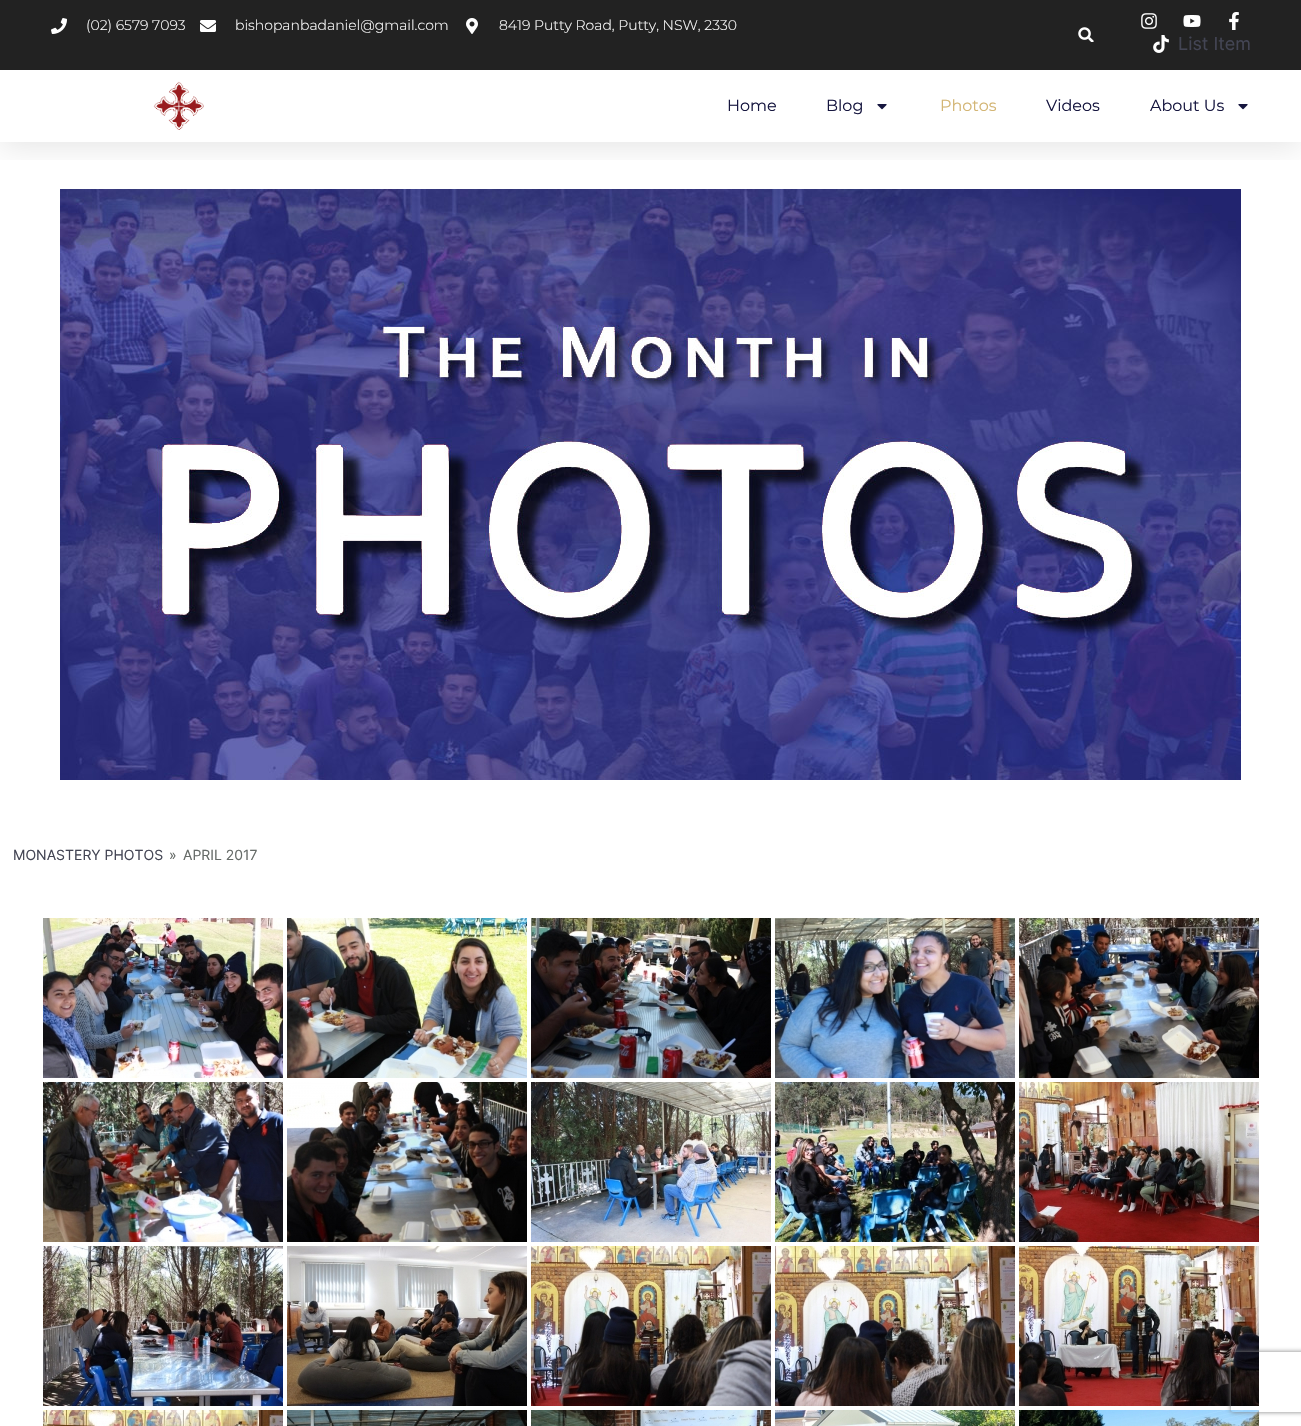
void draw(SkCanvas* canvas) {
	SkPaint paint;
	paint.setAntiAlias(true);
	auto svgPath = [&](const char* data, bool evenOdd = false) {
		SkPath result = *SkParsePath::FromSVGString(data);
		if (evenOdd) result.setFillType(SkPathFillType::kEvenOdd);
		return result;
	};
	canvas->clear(0xffffffff);
	canvas->drawImageRect(SkImages::DeferredFromEncodedData(SkData::MakeFromFileName("img11.png")), SkRect::MakeXYWH(60, 189, 1181, 591), SkSamplingOptions());
	canvas->save();
	canvas->clipRect(SkRect::MakeXYWH(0, 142, 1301, 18));
	paint.setColor(0x1a000000);
	paint.setMaskFilter(SkMaskFilter::MakeBlur(kNormal_SkBlurStyle, 15));
	canvas->drawRect(SkRect::MakeXYWH(0, 5, 1301, 142), paint);
	paint.setMaskFilter(nullptr);
	canvas->restore();
	paint.setColor(0xff222222);
	canvas->drawRect(SkRect::MakeXYWH(0, 0, 1301, 70), paint);
	canvas->drawImageRect(SkImages::DeferredFromEncodedData(SkData::MakeFromFileName("img1.png")), SkRect::MakeXYWH(51, 18, 16, 16), SkSamplingOptions());
	SkFont f1(fontMgr->matchFamilyStyle("Montserrat", SkFontStyle(300, SkFontStyle::kNormal_Width, SkFontStyle::kUpright_Slant)), 14);
	f1.setSubpixel(true);
	paint.setColor(0xffffffff);
	canvas->drawString("(02) 6579 7093", 86, 30, f1, paint);
	canvas->drawImageRect(SkImages::DeferredFromEncodedData(SkData::MakeFromFileName("img2.png")), SkRect::MakeXYWH(200, 20, 16, 12), SkSamplingOptions());
	canvas->drawString("bishopanbadaniel@gmail.com", 235, 30, f1, paint);
	canvas->drawImageRect(SkImages::DeferredFromEncodedData(SkData::MakeFromFileName("img3.png")), SkRect::MakeXYWH(466, 18, 12, 16), SkSamplingOptions());
	canvas->drawString("8419 Putty Road, Putty, NSW, 2330", 499, 30, f1, paint);
	canvas->drawImageRect(SkImages::DeferredFromEncodedData(SkData::MakeFromFileName("img4.png")), SkRect::MakeXYWH(1078, 27, 16, 15), SkSamplingOptions());
	canvas->drawImageRect(SkImages::DeferredFromEncodedData(SkData::MakeFromFileName("img5.png")), SkRect::MakeXYWH(1141, 13, 16, 16), SkSamplingOptions());
	canvas->drawImageRect(SkImages::DeferredFromEncodedData(SkData::MakeFromFileName("img6.png")), SkRect::MakeXYWH(1183, 15, 18, 12), SkSamplingOptions());
	canvas->drawImageRect(SkImages::DeferredFromEncodedData(SkData::MakeFromFileName("img7.png")), SkRect::MakeXYWH(1229, 12, 10, 18), SkSamplingOptions());
	canvas->drawImageRect(SkImages::DeferredFromEncodedData(SkData::MakeFromFileName("img8.png")), SkRect::MakeXYWH(1153, 35, 16, 18), SkSamplingOptions());
	SkFont f2(fontMgr->matchFamilyStyle("Inter", SkFontStyle::Normal()), 18);
	f2.setSubpixel(true);
	paint.setColor(0xff434554);
	canvas->drawString("List Item", 1178, 50, f2, paint);
	canvas->drawImageRect(SkImages::DeferredFromEncodedData(SkData::MakeFromFileName("img9.png")), SkRect::MakeXYWH(153, 81, 51, 49), SkSamplingOptions());
	SkFont f3(fontMgr->matchFamilyStyle("Montserrat", SkFontStyle::Normal()), 16);
	f3.setSubpixel(true);
	paint.setColor(0xff16163f);
	canvas->drawString("Home", 727, 111, f3, paint);
	canvas->drawString("Blog", 826, 111, f3, paint);
	canvas->drawImageRect(SkImages::DeferredFromEncodedData(SkData::MakeFromFileName("img10.png")), SkRect::MakeXYWH(877, 104, 10, 6), SkSamplingOptions());
	paint.setColor(0xffd3b574);
	canvas->drawString("Photos", 940, 111, f3, paint);
	paint.setColor(0xff16163f);
	canvas->drawString("Videos", 1046, 111, f3, paint);
	canvas->drawString("About Us", 1150, 111, f3, paint);
	canvas->drawImageRect(SkImages::DeferredFromEncodedData(SkData::MakeFromFileName("img10.png")), SkRect::MakeXYWH(1238, 104, 10, 6), SkSamplingOptions());
	SkFont f4(fontMgr->matchFamilyStyle("Inter", SkFontStyle::Normal()), 14);
	f4.setSubpixel(true);
	paint.setColor(0xff434554);
	canvas->drawString("MONASTERY PHOTOS", 13, 860, f4, paint);
	paint.setColor(0xff666b68);
	canvas->drawString("»", 169, 860, f4, paint);
	canvas->drawString("APRIL 2017", 183, 860, f4, paint);
	canvas->drawImageRect(SkImages::DeferredFromEncodedData(SkData::MakeFromFileName("img12.png")), SkRect::MakeXYWH(43, 918, 240, 160), SkSamplingOptions());
	canvas->drawImageRect(SkImages::DeferredFromEncodedData(SkData::MakeFromFileName("img13.png")), SkRect::MakeXYWH(287, 918, 240, 160), SkSamplingOptions());
	canvas->drawImageRect(SkImages::DeferredFromEncodedData(SkData::MakeFromFileName("img14.png")), SkRect::MakeXYWH(531, 918, 240, 160), SkSamplingOptions());
	canvas->drawImageRect(SkImages::DeferredFromEncodedData(SkData::MakeFromFileName("img15.png")), SkRect::MakeXYWH(775, 918, 240, 160), SkSamplingOptions());
	canvas->drawImageRect(SkImages::DeferredFromEncodedData(SkData::MakeFromFileName("img16.png")), SkRect::MakeXYWH(1019, 918, 240, 160), SkSamplingOptions());
	canvas->drawImageRect(SkImages::DeferredFromEncodedData(SkData::MakeFromFileName("img17.png")), SkRect::MakeXYWH(43, 1082, 240, 160), SkSamplingOptions());
	canvas->drawImageRect(SkImages::DeferredFromEncodedData(SkData::MakeFromFileName("img18.png")), SkRect::MakeXYWH(287, 1082, 240, 160), SkSamplingOptions());
	canvas->drawImageRect(SkImages::DeferredFromEncodedData(SkData::MakeFromFileName("img19.png")), SkRect::MakeXYWH(531, 1082, 240, 160), SkSamplingOptions());
	canvas->drawImageRect(SkImages::DeferredFromEncodedData(SkData::MakeFromFileName("img20.png")), SkRect::MakeXYWH(775, 1082, 240, 160), SkSamplingOptions());
	canvas->drawImageRect(SkImages::DeferredFromEncodedData(SkData::MakeFromFileName("img21.png")), SkRect::MakeXYWH(1019, 1082, 240, 160), SkSamplingOptions());
	canvas->drawImageRect(SkImages::DeferredFromEncodedData(SkData::MakeFromFileName("img22.png")), SkRect::MakeXYWH(43, 1246, 240, 160), SkSamplingOptions());
	canvas->drawImageRect(SkImages::DeferredFromEncodedData(SkData::MakeFromFileName("img23.png")), SkRect::MakeXYWH(287, 1246, 240, 160), SkSamplingOptions());
	canvas->drawImageRect(SkImages::DeferredFromEncodedData(SkData::MakeFromFileName("img24.png")), SkRect::MakeXYWH(531, 1246, 240, 160), SkSamplingOptions());
	canvas->drawImageRect(SkImages::DeferredFromEncodedData(SkData::MakeFromFileName("img25.png")), SkRect::MakeXYWH(775, 1246, 240, 160), SkSamplingOptions());
	canvas->drawImageRect(SkImages::DeferredFromEncodedData(SkData::MakeFromFileName("img26.png")), SkRect::MakeXYWH(1019, 1246, 240, 160), SkSamplingOptions());
	canvas->drawImageRect(SkImages::DeferredFromEncodedData(SkData::MakeFromFileName("img27.png")), SkRect::MakeXYWH(43, 1410, 240, 16), SkSamplingOptions());
	canvas->drawImageRect(SkImages::DeferredFromEncodedData(SkData::MakeFromFileName("img28.png")), SkRect::MakeXYWH(287, 1410, 240, 16), SkSamplingOptions());
	canvas->drawImageRect(SkImages::DeferredFromEncodedData(SkData::MakeFromFileName("img29.png")), SkRect::MakeXYWH(531, 1410, 240, 16), SkSamplingOptions());
	canvas->drawImageRect(SkImages::DeferredFromEncodedData(SkData::MakeFromFileName("img30.png")), SkRect::MakeXYWH(775, 1410, 240, 16), SkSamplingOptions());
	canvas->drawImageRect(SkImages::DeferredFromEncodedData(SkData::MakeFromFileName("img31.png")), SkRect::MakeXYWH(1019, 1410, 240, 16), SkSamplingOptions());
	canvas->save();
	canvas->clipPath(svgPath("M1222 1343H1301V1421H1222ZM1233 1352H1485C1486 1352 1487 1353 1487 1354V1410C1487 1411 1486 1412 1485 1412H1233C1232 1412 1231 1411 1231 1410V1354C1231 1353 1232 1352 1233 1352Z", true), true);
	paint.setColor(0xff808080);
	paint.setMaskFilter(SkMaskFilter::MakeBlur(kNormal_SkBlurStyle, 2.5));
	canvas->drawRoundRect(SkRect::MakeXYWH(1231, 1352, 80, 60), 2, 2, paint);
	paint.setMaskFilter(nullptr);
	canvas->restore();
}
